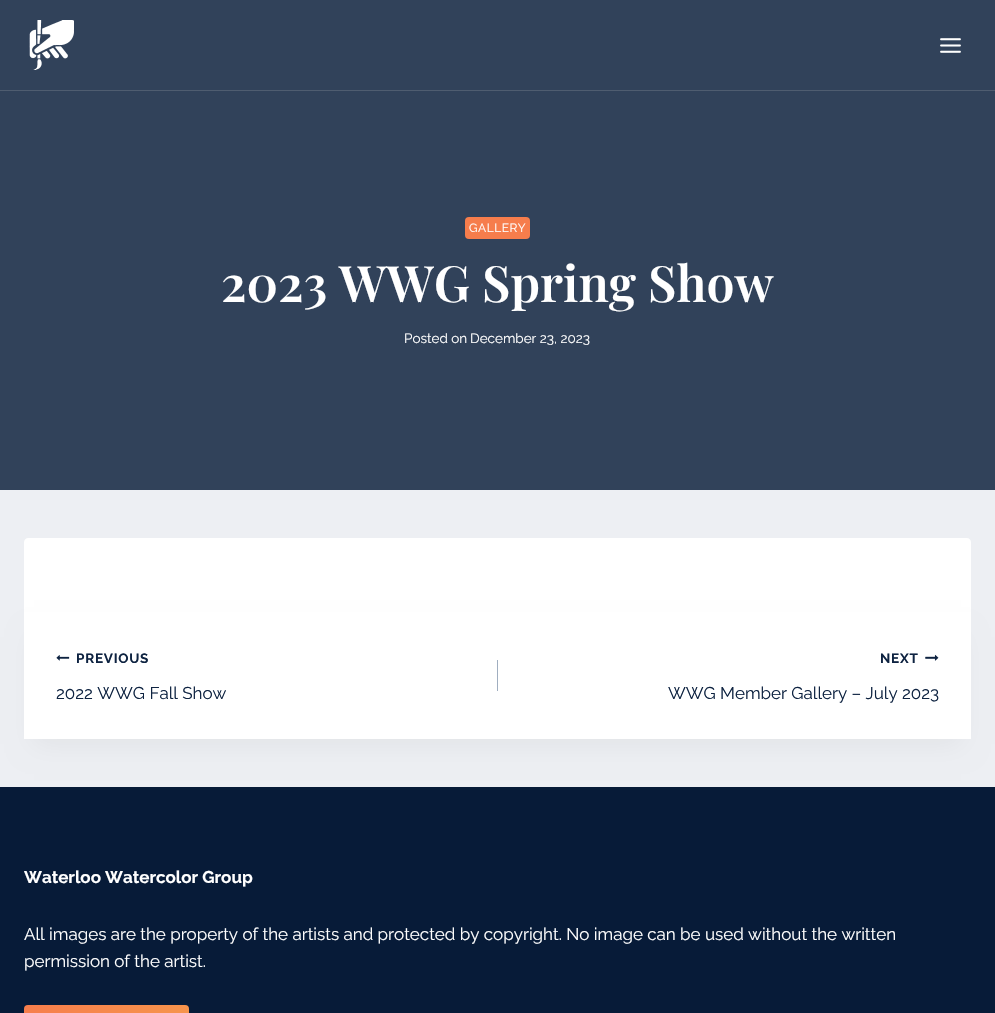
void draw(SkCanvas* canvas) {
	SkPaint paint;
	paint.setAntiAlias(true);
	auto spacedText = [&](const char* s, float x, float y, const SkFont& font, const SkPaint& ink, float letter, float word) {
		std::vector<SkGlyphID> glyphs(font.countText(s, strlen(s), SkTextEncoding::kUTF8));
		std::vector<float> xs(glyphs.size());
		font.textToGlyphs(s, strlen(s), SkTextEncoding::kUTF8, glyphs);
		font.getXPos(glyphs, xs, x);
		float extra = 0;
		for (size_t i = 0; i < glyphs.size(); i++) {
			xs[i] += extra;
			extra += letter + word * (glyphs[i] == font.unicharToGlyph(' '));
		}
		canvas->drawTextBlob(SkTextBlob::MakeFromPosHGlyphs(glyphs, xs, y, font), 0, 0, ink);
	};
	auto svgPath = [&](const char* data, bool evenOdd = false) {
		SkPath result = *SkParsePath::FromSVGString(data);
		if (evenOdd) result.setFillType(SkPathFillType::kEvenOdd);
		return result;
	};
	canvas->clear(0xffedeff3);
	paint.setColor(0xff31425a);
	canvas->drawRect(SkRect::MakeXYWH(0, 0, 995, 490), paint);
	paint.setColor(0xff4f5d70);
	canvas->drawRect(SkRect::MakeXYWH(0, 90, 995, 1), paint);
	canvas->drawImageRect(SkImages::DeferredFromEncodedData(SkData::MakeFromFileName("img1.png")), SkRect::MakeXYWH(29, 20, 45, 50), SkSamplingOptions());
	canvas->drawImageRect(SkImages::DeferredFromEncodedData(SkData::MakeFromFileName("img2.png")), SkRect::MakeXYWH(940, 38, 21, 15), SkSamplingOptions());
	paint.setColor(0xfff67d4c);
	canvas->drawRoundRect(SkRect::MakeXYWH(465, 217, 65, 22), 4, 4, paint);
	SkFont f1(fontMgr->matchFamilyStyle("Raleway", SkFontStyle::Normal()), 12);
	f1.setSubpixel(true);
	paint.setColor(0xffffffff);
	spacedText("GALLERY", 469, 232, f1, paint, 0.5, 0);
	SkFont f2(fontMgr->matchFamilyStyle("Playfair Display", SkFontStyle(600, SkFontStyle::kNormal_Width, SkFontStyle::kUpright_Slant)), 50);
	f2.setSubpixel(true);
	canvas->drawString("2023 WWG Spring Show", 221, 302, f2, paint);
	SkFont f3(fontMgr->matchFamilyStyle("Raleway", SkFontStyle::Normal()), 13.5);
	f3.setSubpixel(true);
	canvas->drawString("Posted on", 404, 343, f3, paint);
	canvas->drawString("December 23, 2023", 470, 343, f3, paint);
	canvas->drawPath(svgPath("M28 538H967C969 538 971 540 971 542V612H24V542C24 540 26 538 28 538Z"), paint);
	paint.setColor(0x0d000000);
	paint.setMaskFilter(SkMaskFilter::MakeBlur(kNormal_SkBlurStyle, 12.5));
	canvas->drawRect(SkRect::MakeXYWH(34, 637, 927, 107), paint);
	paint.setMaskFilter(nullptr);
	paint.setColor(0xffffffff);
	canvas->drawRect(SkRect::MakeXYWH(24, 612, 947, 127), paint);
	canvas->drawImageRect(SkImages::DeferredFromEncodedData(SkData::MakeFromFileName("img3.png")), SkRect::MakeXYWH(56, 655, 14, 6), SkSamplingOptions());
	SkFont f4(fontMgr->matchFamilyStyle("Raleway", SkFontStyle::Bold()), 13.5);
	f4.setSubpixel(true);
	paint.setColor(0xff0e2341);
	spacedText("PREVIOUS", 76, 663, f4, paint, 0.75, 0);
	SkFont f5(fontMgr->matchFamilyStyle("Raleway", SkFontStyle::Normal()), 17);
	f5.setSubpixel(true);
	canvas->drawString("2022 WWG Fall Show", 56, 699, f5, paint);
	paint.setColor(0xffa0aec0);
	canvas->drawRect(SkRect::MakeXYWH(497, 660, 1, 31), paint);
	paint.setColor(0xff0e2341);
	spacedText("NEXT", 880, 663, f4, paint, 0.75, 0);
	canvas->drawImageRect(SkImages::DeferredFromEncodedData(SkData::MakeFromFileName("img4.png")), SkRect::MakeXYWH(925, 654, 14, 7), SkSamplingOptions());
	canvas->drawString("WWG Member Gallery – July 2023", 668, 699, f5, paint);
	paint.setColor(0xff071b38);
	canvas->drawRect(SkRect::MakeXYWH(0, 787, 995, 226), paint);
	SkFont f6(fontMgr->matchFamilyStyle("Raleway", SkFontStyle::Bold()), 17);
	f6.setSubpixel(true);
	paint.setColor(0xffffffff);
	canvas->drawString("Waterloo Watercolor Group", 24, 883, f6, paint);
	canvas->drawString("All images are the property of the artists and protected by copyright. No image can be used without the written", 24, 940, f5, paint);
	canvas->drawString("permission of the artist.", 24, 967, f5, paint);
	{
		const SkColor colors[] = {0xfff67d4c, 0xfff69a4c};
		const float stops[] = {0, 1};
		const SkPoint ends[] = {{53, 976}, {160, 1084}};
		paint.setShader(SkGradientShader::MakeLinear(ends, colors, stops, 2, SkTileMode::kClamp));
		paint.setAlpha(255);
	}
	canvas->drawRoundRect(SkRect::MakeXYWH(24, 1005, 165, 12), 4, 4, paint);
}
